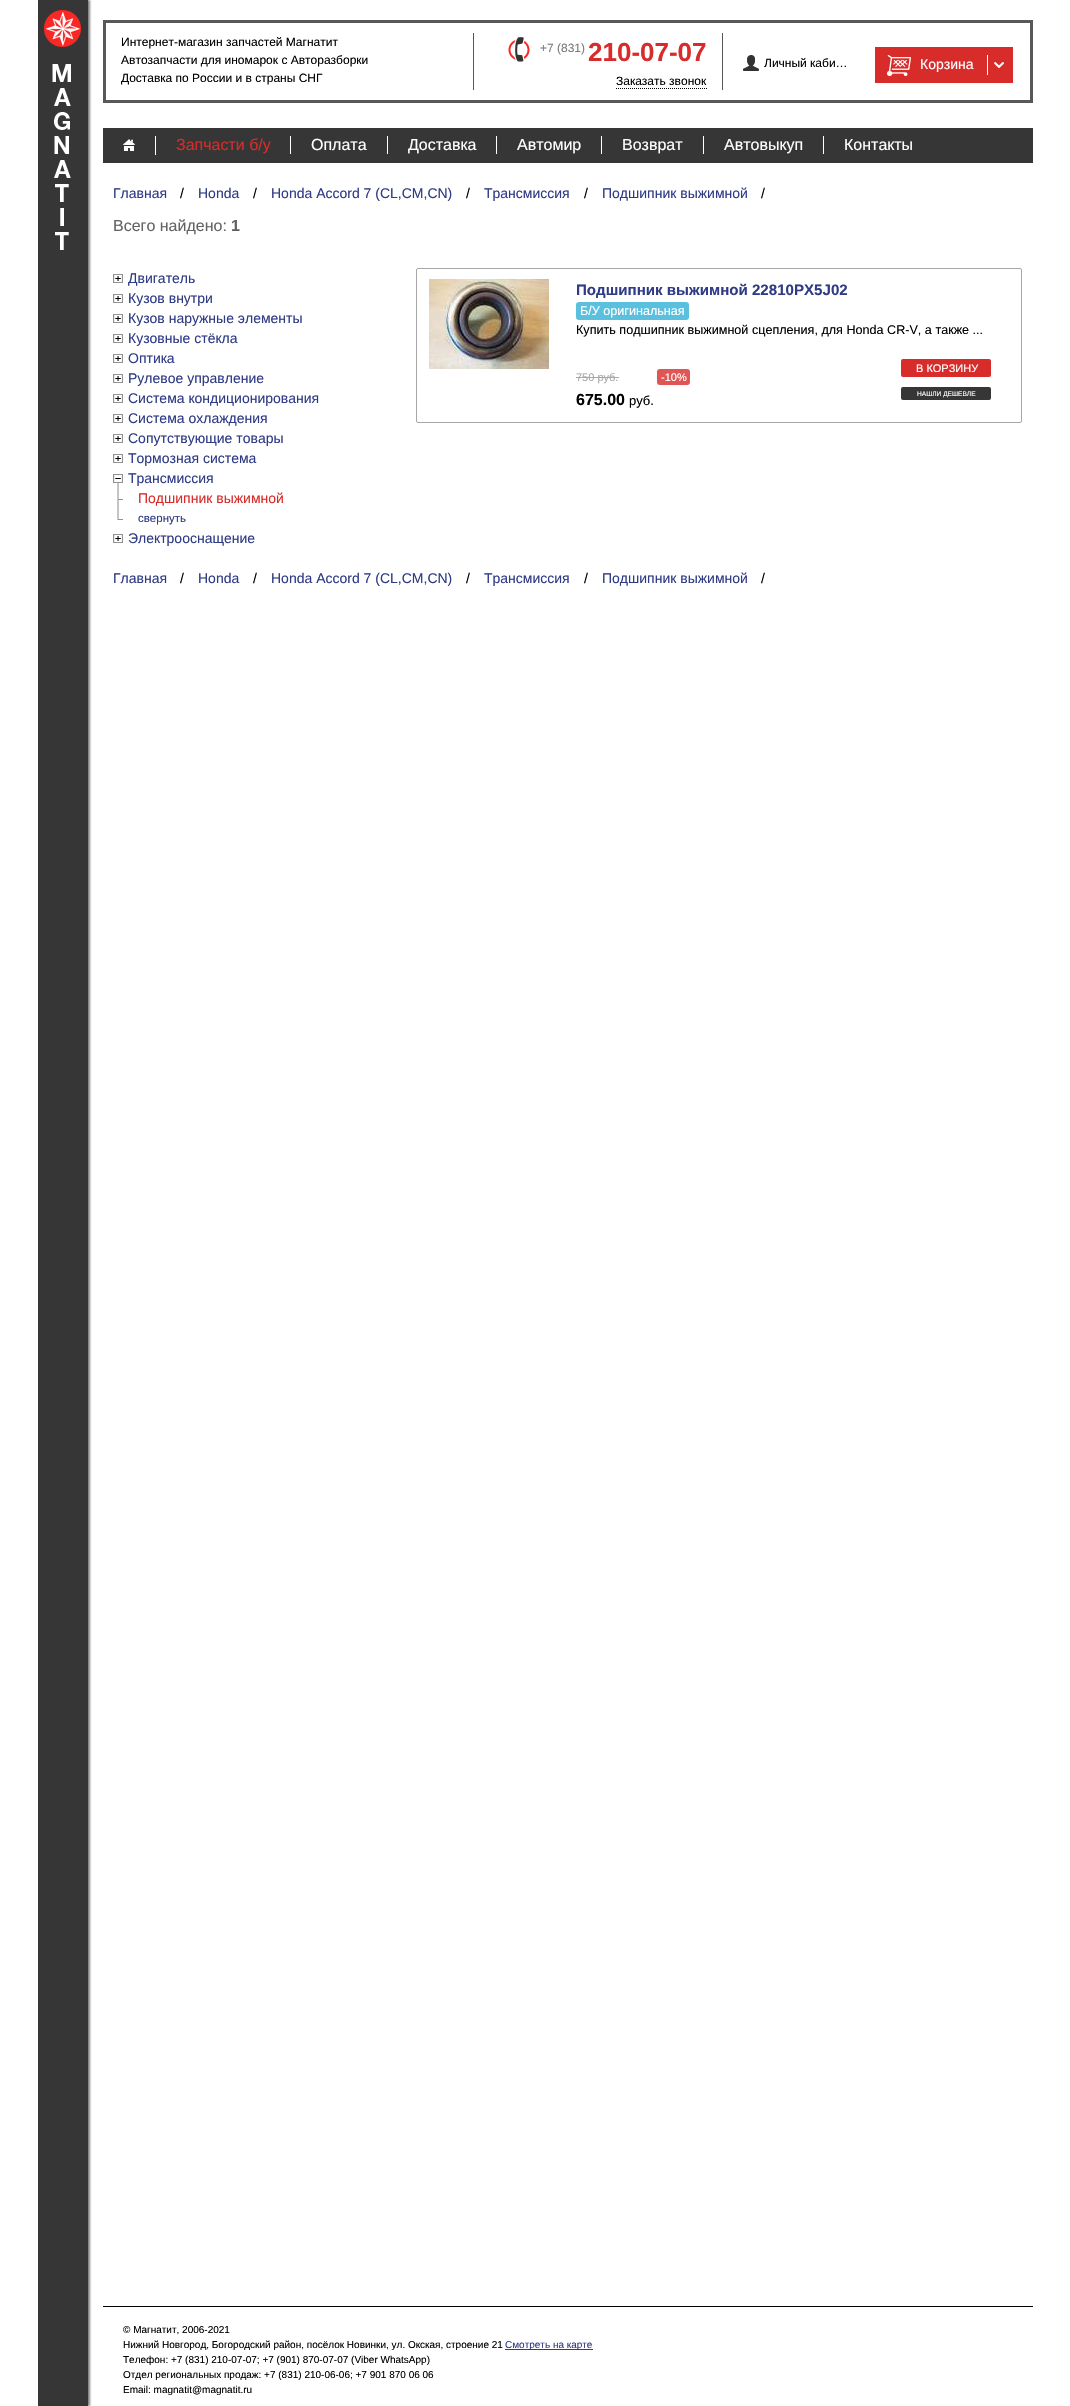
void draw(SkCanvas* canvas) {
	SkPaint paint;
	paint.setAntiAlias(true);
	auto svgPath = [&](const char* data, bool evenOdd = false) {
		SkPath result = *SkParsePath::FromSVGString(data);
		if (evenOdd) result.setFillType(SkPathFillType::kEvenOdd);
		return result;
	};
	canvas->clear(0xffffffff);
	paint.setColor(0x80000000);
	paint.setMaskFilter(SkMaskFilter::MakeBlur(kNormal_SkBlurStyle, 1));
	canvas->drawRect(SkRect::MakeXYWH(40, 0, 50, 2406), paint);
	paint.setMaskFilter(nullptr);
	paint.setColor(0xff363636);
	canvas->drawRect(SkRect::MakeXYWH(38, 0, 50, 2406), paint);
	canvas->drawImageRect(SkImages::DeferredFromEncodedData(SkData::MakeFromFileName("img1.png")), SkRect::MakeXYWH(44, 10, 37, 240), SkSamplingOptions());
	paint.setStroke(true);
	paint.setStrokeWidth(3);
	paint.setColor(0xff585858);
	canvas->drawRect(SkRect::MakeXYWH(104.5, 21.5, 927, 80), paint);
	SkFont f1(fontMgr->matchFamilyStyle("Liberation Sans", SkFontStyle::Normal()), 12);
	f1.setSubpixel(true);
	paint.setStroke(false);
	paint.setColor(0xff000000);
	canvas->drawString("Интернет-магазин запчастей Магнатит", 121, 46, f1, paint);
	canvas->drawString("Автозапчасти для иномарок с Авторазборки", 121, 64, f1, paint);
	canvas->drawString("Доставка по России и в страны СНГ", 121, 82, f1, paint);
	paint.setColor(0xff585858);
	canvas->drawRect(SkRect::MakeXYWH(722, 33, 1, 57), paint);
	canvas->drawRect(SkRect::MakeXYWH(473, 33, 1, 57), paint);
	canvas->drawImageRect(SkImages::DeferredFromEncodedData(SkData::MakeFromFileName("img2.png")), SkRect::MakeXYWH(508, 37, 22, 25), SkSamplingOptions());
	paint.setColor(0xff7b7b7b);
	canvas->drawString("+7 (831)", 540, 52, f1, paint);
	SkFont f2(fontMgr->matchFamilyStyle("Liberation Sans", SkFontStyle::Bold()), 26);
	f2.setSubpixel(true);
	paint.setColor(0xffd72c2a);
	canvas->drawString("210-07-07", 588, 61, f2, paint);
	paint.setColor(0xff000000);
	canvas->drawString("Заказать звонок", 616, 85, f1, paint);
	paint.setStroke(true);
	paint.setStrokeWidth(1);
	paint.setPathEffect(SkDashPathEffect::Make({{1, 1}}, 0));
	canvas->drawPath(svgPath("M616 88.5H707"), paint);
	paint.setPathEffect(nullptr);
	canvas->drawImageRect(SkImages::DeferredFromEncodedData(SkData::MakeFromFileName("img3.png")), SkRect::MakeXYWH(743, 55, 16, 16), SkSamplingOptions());
	paint.setStroke(false);
	canvas->drawString("Личный каби…", 764, 67, f1, paint);
	paint.setColor(0xffd72c2a);
	canvas->drawRect(SkRect::MakeXYWH(875, 47, 138, 36), paint);
	canvas->drawImageRect(SkImages::DeferredFromEncodedData(SkData::MakeFromFileName("img4.png")), SkRect::MakeXYWH(887, 55, 24, 21), SkSamplingOptions());
	SkFont f3(fontMgr->matchFamilyStyle("Liberation Sans", SkFontStyle::Normal()), 14);
	f3.setSubpixel(true);
	paint.setColor(0xffffffff);
	canvas->drawString("Корзина", 920, 69, f3, paint);
	canvas->drawImageRect(SkImages::DeferredFromEncodedData(SkData::MakeFromFileName("img5.png")), SkRect::MakeXYWH(994, 62, 10, 6), SkSamplingOptions());
	canvas->drawRect(SkRect::MakeXYWH(987, 55, 1, 20), paint);
	paint.setColor(0xff363636);
	canvas->drawRect(SkRect::MakeXYWH(103, 128, 930, 35), paint);
	paint.setColor(0xffffffff);
	canvas->drawRect(SkRect::MakeXYWH(155, 136, 1, 19), paint);
	canvas->drawImageRect(SkImages::DeferredFromEncodedData(SkData::MakeFromFileName("img6.png")), SkRect::MakeXYWH(123, 139, 12, 12), SkSamplingOptions());
	canvas->drawRect(SkRect::MakeXYWH(290, 136, 1, 18), paint);
	SkFont f4(fontMgr->matchFamilyStyle("Liberation Sans", SkFontStyle::Normal()), 16);
	f4.setSubpixel(true);
	paint.setColor(0xffd72c2a);
	canvas->drawString("Запчасти б/у", 176, 150, f4, paint);
	paint.setColor(0xffffffff);
	canvas->drawRect(SkRect::MakeXYWH(387, 136, 1, 18), paint);
	canvas->drawString("Оплата", 311, 150, f4, paint);
	canvas->drawRect(SkRect::MakeXYWH(496, 136, 1, 18), paint);
	canvas->drawString("Доставка", 408, 150, f4, paint);
	canvas->drawRect(SkRect::MakeXYWH(601, 136, 1, 18), paint);
	canvas->drawString("Автомир", 517, 150, f4, paint);
	canvas->drawRect(SkRect::MakeXYWH(703, 136, 1, 18), paint);
	canvas->drawString("Возврат", 622, 150, f4, paint);
	canvas->drawRect(SkRect::MakeXYWH(823, 136, 1, 18), paint);
	canvas->drawString("Автовыкуп", 724, 150, f4, paint);
	canvas->drawString("Контакты", 844, 150, f4, paint);
	paint.setColor(0xff2f3b85);
	canvas->drawString("Главная", 113, 198, f3, paint);
	paint.setColor(0xff000000);
	canvas->drawString("/", 180, 198, f3, paint);
	paint.setColor(0xff2f3b85);
	canvas->drawString("Honda", 198, 198, f3, paint);
	paint.setColor(0xff000000);
	canvas->drawString("/", 253, 198, f3, paint);
	paint.setColor(0xff2f3b85);
	canvas->drawString("Honda Accord 7 (CL,CM,CN)", 271, 198, f3, paint);
	paint.setColor(0xff000000);
	canvas->drawString("/", 466, 198, f3, paint);
	paint.setColor(0xff2f3b85);
	canvas->drawString("Трансмиссия", 484, 198, f3, paint);
	paint.setColor(0xff000000);
	canvas->drawString("/", 584, 198, f3, paint);
	paint.setColor(0xff2f3b85);
	canvas->drawString("Подшипник выжимной", 602, 198, f3, paint);
	paint.setColor(0xff000000);
	canvas->drawString("/", 761, 198, f3, paint);
	paint.setColor(0xff626262);
	canvas->drawString("Всего найдено:", 113, 231, f4, paint);
	SkFont f5(fontMgr->matchFamilyStyle("Liberation Sans", SkFontStyle::Bold()), 16);
	f5.setSubpixel(true);
	canvas->drawString("1", 231, 231, f5, paint);
	canvas->drawImageRect(SkImages::DeferredFromEncodedData(SkData::MakeFromFileName("img7.png")), SkRect::MakeXYWH(113, 274, 10, 9), SkSamplingOptions());
	paint.setColor(0xff2f3b85);
	canvas->drawString("Двигатель", 128, 283, f3, paint);
	canvas->drawImageRect(SkImages::DeferredFromEncodedData(SkData::MakeFromFileName("img7.png")), SkRect::MakeXYWH(113, 294, 10, 9), SkSamplingOptions());
	canvas->drawString("Кузов внутри", 128, 303, f3, paint);
	canvas->drawImageRect(SkImages::DeferredFromEncodedData(SkData::MakeFromFileName("img7.png")), SkRect::MakeXYWH(113, 314, 10, 9), SkSamplingOptions());
	canvas->drawString("Кузов наружные элементы", 128, 323, f3, paint);
	canvas->drawImageRect(SkImages::DeferredFromEncodedData(SkData::MakeFromFileName("img7.png")), SkRect::MakeXYWH(113, 334, 10, 9), SkSamplingOptions());
	canvas->drawString("Кузовные стёкла", 128, 343, f3, paint);
	canvas->drawImageRect(SkImages::DeferredFromEncodedData(SkData::MakeFromFileName("img7.png")), SkRect::MakeXYWH(113, 354, 10, 9), SkSamplingOptions());
	canvas->drawString("Оптика", 128, 363, f3, paint);
	canvas->drawImageRect(SkImages::DeferredFromEncodedData(SkData::MakeFromFileName("img7.png")), SkRect::MakeXYWH(113, 374, 10, 9), SkSamplingOptions());
	canvas->drawString("Рулевое управление", 128, 383, f3, paint);
	canvas->drawImageRect(SkImages::DeferredFromEncodedData(SkData::MakeFromFileName("img7.png")), SkRect::MakeXYWH(113, 394, 10, 9), SkSamplingOptions());
	canvas->drawString("Система кондиционирования", 128, 403, f3, paint);
	canvas->drawImageRect(SkImages::DeferredFromEncodedData(SkData::MakeFromFileName("img7.png")), SkRect::MakeXYWH(113, 414, 10, 9), SkSamplingOptions());
	canvas->drawString("Система охлаждения", 128, 423, f3, paint);
	canvas->drawImageRect(SkImages::DeferredFromEncodedData(SkData::MakeFromFileName("img7.png")), SkRect::MakeXYWH(113, 434, 10, 9), SkSamplingOptions());
	canvas->drawString("Сопутствующие товары", 128, 443, f3, paint);
	canvas->drawImageRect(SkImages::DeferredFromEncodedData(SkData::MakeFromFileName("img7.png")), SkRect::MakeXYWH(113, 454, 10, 9), SkSamplingOptions());
	canvas->drawString("Тормозная система", 128, 463, f3, paint);
	canvas->drawImageRect(SkImages::DeferredFromEncodedData(SkData::MakeFromFileName("img8.png")), SkRect::MakeXYWH(113, 474, 10, 14), SkSamplingOptions());
	canvas->drawString("Трансмиссия", 128, 483, f3, paint);
	canvas->drawImageRect(SkImages::DeferredFromEncodedData(SkData::MakeFromFileName("img9.png")), SkRect::MakeXYWH(117, 488, 6, 20), SkSamplingOptions());
	paint.setColor(0xffd72c2a);
	canvas->drawString("Подшипник выжимной", 138, 503, f3, paint);
	canvas->drawImageRect(SkImages::DeferredFromEncodedData(SkData::MakeFromFileName("img10.png")), SkRect::MakeXYWH(117, 508, 6, 12), SkSamplingOptions());
	SkFont f6(fontMgr->matchFamilyStyle("Liberation Sans", SkFontStyle::Normal()), 11.5);
	f6.setSubpixel(true);
	paint.setColor(0xff2f3b85);
	canvas->drawString("свернуть", 138, 522, f6, paint);
	canvas->drawImageRect(SkImages::DeferredFromEncodedData(SkData::MakeFromFileName("img7.png")), SkRect::MakeXYWH(113, 534, 10, 9), SkSamplingOptions());
	canvas->drawString("Электрооснащение", 128, 543, f3, paint);
	paint.setStroke(true);
	paint.setColor(0xffa7a7a7);
	canvas->drawRoundRect(SkRect::MakeXYWH(416.5, 268.5, 605, 154), 1.5, 1.5, paint);
	canvas->drawImageRect(SkImages::DeferredFromEncodedData(SkData::MakeFromFileName("img11.png")), SkRect::MakeXYWH(429, 279, 120, 90), SkSamplingOptions());
	SkFont f7(fontMgr->matchFamilyStyle("Liberation Sans", SkFontStyle::Bold()), 15.1);
	f7.setSubpixel(true);
	paint.setStroke(false);
	paint.setColor(0xff2f3b85);
	canvas->drawString("Подшипник выжимной 22810PX5J02", 576, 295, f7, paint);
	paint.setColor(0xff5bc0de);
	canvas->drawRoundRect(SkRect::MakeXYWH(576, 302, 113, 18), 3, 3, paint);
	SkFont f8(fontMgr->matchFamilyStyle("Liberation Sans", SkFontStyle::Normal()), 12.6);
	f8.setSubpixel(true);
	paint.setColor(0xffffffff);
	canvas->drawString("Б/У оригинальная", 580, 315, f8, paint);
	paint.setColor(0xff000000);
	canvas->drawString("Купить подшипник выжимной сцепления, для Honda CR-V, а также ...", 576, 334, f8, paint);
	SkFont f9(fontMgr->matchFamilyStyle("Liberation Sans", SkFontStyle::Normal()), 11);
	f9.setSubpixel(true);
	paint.setColor(0xffa7a7a7);
	canvas->drawString("750 руб.", 576, 381, f9, paint);
	canvas->drawRect(SkRect::MakeXYWH(576, 377, 43, 1), paint);
	paint.setColor(0xffdf5655);
	canvas->drawRoundRect(SkRect::MakeXYWH(657, 369, 33, 16), 3, 3, paint);
	paint.setColor(0xffffffff);
	canvas->drawString("-10%", 661, 381, f9, paint);
	paint.setColor(0xff000000);
	canvas->drawString("675.00", 576, 405, f5, paint);
	SkFont f10(fontMgr->matchFamilyStyle("Liberation Sans", SkFontStyle::Normal()), 13);
	f10.setSubpixel(true);
	canvas->drawString("руб.", 629, 405, f10, paint);
	paint.setColor(0xffd72c2a);
	canvas->drawRoundRect(SkRect::MakeXYWH(901, 359, 90, 18), 2, 2, paint);
	paint.setColor(0xffffffff);
	canvas->drawString("В КОРЗИНУ", 916, 372, f9, paint);
	paint.setColor(0xff363636);
	canvas->drawRoundRect(SkRect::MakeXYWH(901, 387, 90, 13), 2, 2, paint);
	SkFont f11(fontMgr->matchFamilyStyle("Liberation Sans", SkFontStyle::Normal()), 6.6);
	f11.setSubpixel(true);
	paint.setColor(0xffffffff);
	canvas->drawString("НАШЛИ ДЕШЕВЛЕ", 917, 396, f11, paint);
	paint.setColor(0xff2f3b85);
	canvas->drawString("Главная", 113, 583, f3, paint);
	paint.setColor(0xff000000);
	canvas->drawString("/", 180, 583, f3, paint);
	paint.setColor(0xff2f3b85);
	canvas->drawString("Honda", 198, 583, f3, paint);
	paint.setColor(0xff000000);
	canvas->drawString("/", 253, 583, f3, paint);
	paint.setColor(0xff2f3b85);
	canvas->drawString("Honda Accord 7 (CL,CM,CN)", 271, 583, f3, paint);
	paint.setColor(0xff000000);
	canvas->drawString("/", 466, 583, f3, paint);
	paint.setColor(0xff2f3b85);
	canvas->drawString("Трансмиссия", 484, 583, f3, paint);
	paint.setColor(0xff000000);
	canvas->drawString("/", 584, 583, f3, paint);
	paint.setColor(0xff2f3b85);
	canvas->drawString("Подшипник выжимной", 602, 583, f3, paint);
	paint.setColor(0xff000000);
	canvas->drawString("/", 761, 583, f3, paint);
	canvas->drawRect(SkRect::MakeXYWH(103, 2306, 930, 1), paint);
	SkFont f12(fontMgr->matchFamilyStyle("Liberation Sans", SkFontStyle::Normal()), 10);
	f12.setSubpixel(true);
	canvas->drawString("© Магнатит, 2006-2021", 123, 2333, f12, paint);
	canvas->drawString("Нижний Новгород, Богородский район, посёлок Новинки, ул. Окская, строение 21", 123, 2348, f12, paint);
	paint.setColor(0xff2f3b85);
	canvas->drawRect(SkRect::MakeXYWH(505, 2349, 88, 1), paint);
	canvas->drawString("Смотреть на карте", 505, 2348, f12, paint);
	paint.setColor(0xff000000);
	canvas->drawString("Телефон: +7 (831) 210-07-07; +7 (901) 870-07-07 (Viber WhatsApp)", 123, 2363, f12, paint);
	canvas->drawString("Отдел региональных продаж: +7 (831) 210-06-06; +7 901 870 06 06", 123, 2378, f12, paint);
	canvas->drawString("Email: magnatit@magnatit.ru", 123, 2393, f12, paint);
}
